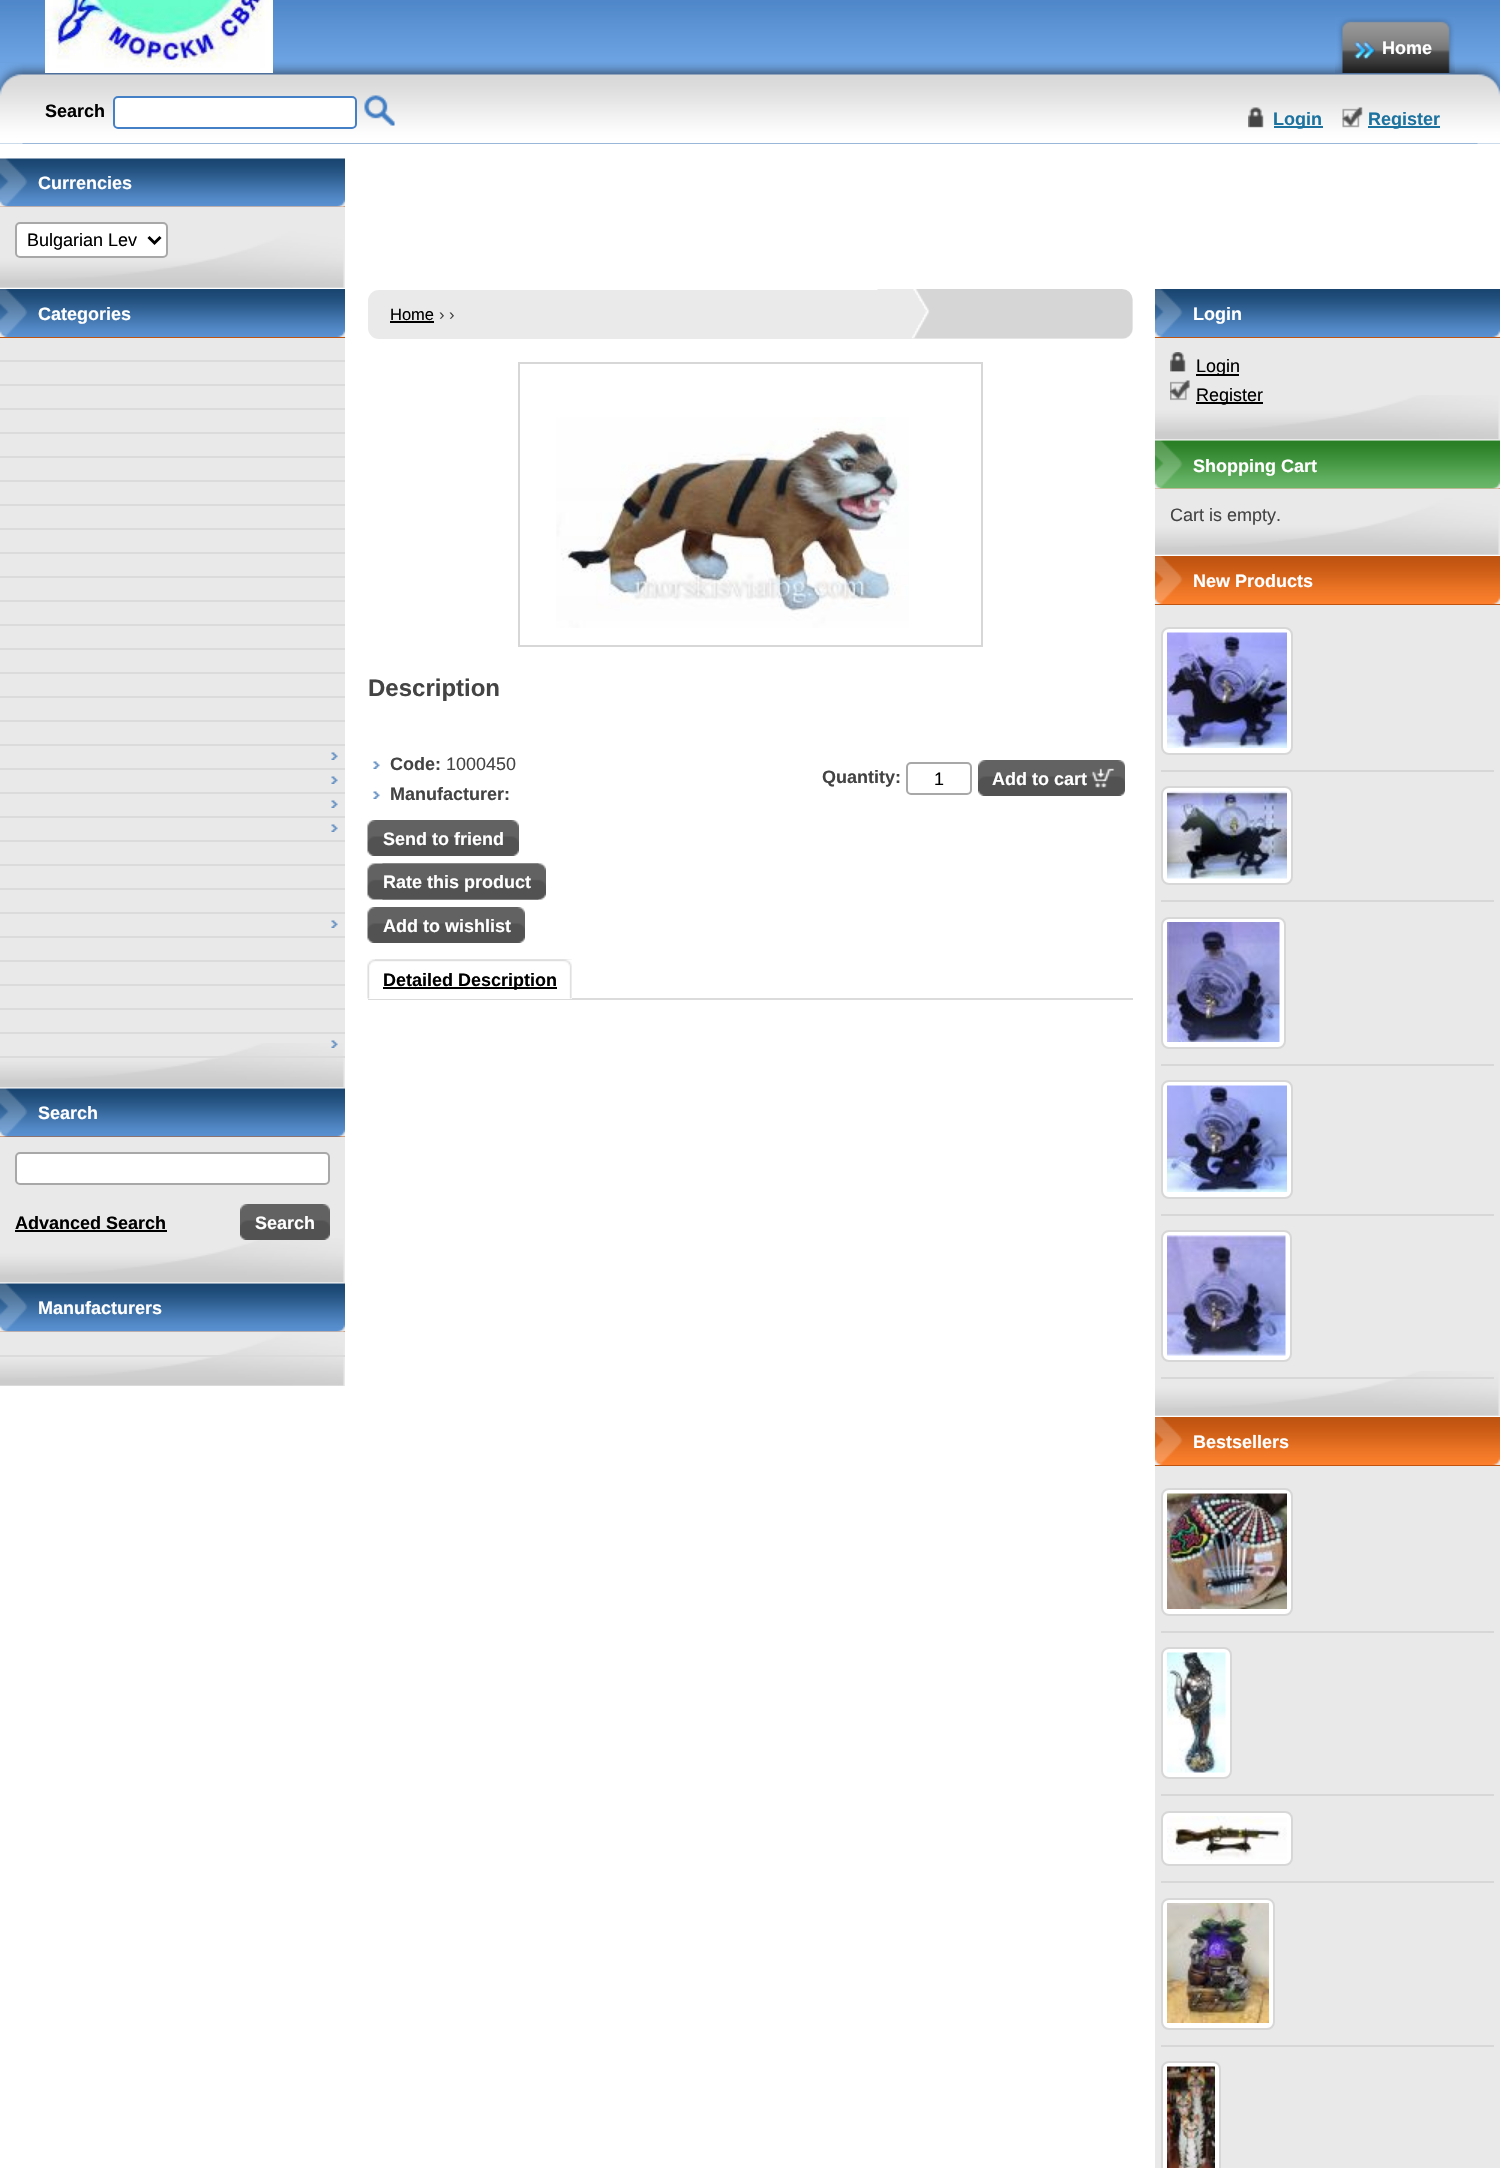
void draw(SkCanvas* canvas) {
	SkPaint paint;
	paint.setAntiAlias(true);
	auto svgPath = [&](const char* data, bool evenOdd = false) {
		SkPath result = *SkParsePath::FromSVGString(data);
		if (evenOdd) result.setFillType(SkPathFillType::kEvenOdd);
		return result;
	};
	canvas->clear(0xffffffff);
	paint.setColor(0xff326db2);
	canvas->drawRect(SkRect::MakeXYWH(0, 143, 1500, 1), paint);
	canvas->drawImageRect(SkImages::DeferredFromEncodedData(SkData::MakeFromFileName("img1.png")), SkRect::MakeXYWH(0, 0, 1500, 144), SkSamplingOptions());
	canvas->drawImageRect(SkImages::DeferredFromEncodedData(SkData::MakeFromFileName("img2.png")), SkRect::MakeXYWH(0, 63, 23, 81), SkSamplingOptions());
	canvas->drawImageRect(SkImages::DeferredFromEncodedData(SkData::MakeFromFileName("img3.png")), SkRect::MakeXYWH(1477, 63, 23, 81), SkSamplingOptions());
	canvas->drawImageRect(SkImages::DeferredFromEncodedData(SkData::MakeFromFileName("img4.png")), SkRect::MakeXYWH(45, 0, 228, 73), SkSamplingOptions());
	canvas->drawImageRect(SkImages::DeferredFromEncodedData(SkData::MakeFromFileName("img5.png")), SkRect::MakeXYWH(1335, 17, 41, 56), SkSamplingOptions());
	canvas->drawImageRect(SkImages::DeferredFromEncodedData(SkData::MakeFromFileName("img6.png")), SkRect::MakeXYWH(1375, 17, 80, 56), SkSamplingOptions());
	SkFont f1(fontMgr->matchFamilyStyle("Liberation Sans", SkFontStyle::Bold()), 18);
	f1.setSubpixel(true);
	paint.setColor(0xffffffff);
	canvas->drawString("Home", 1382, 54, f1, paint);
	paint.setColor(0xff000000);
	canvas->drawString("Search", 45, 117, f1, paint);
	paint.setColor(0xffffffff);
	canvas->drawRoundRect(SkRect::MakeXYWH(114, 97, 242, 31), 4, 4, paint);
	paint.setStroke(true);
	paint.setStrokeWidth(2);
	paint.setColor(0xff4480c6);
	canvas->drawRoundRect(SkRect::MakeXYWH(114, 97, 242, 31), 4, 4, paint);
	canvas->drawImageRect(SkImages::DeferredFromEncodedData(SkData::MakeFromFileName("img7.png")), SkRect::MakeXYWH(364, 95, 31, 31), SkSamplingOptions());
	canvas->drawImageRect(SkImages::DeferredFromEncodedData(SkData::MakeFromFileName("img8.png")), SkRect::MakeXYWH(1248, 107, 16, 21), SkSamplingOptions());
	paint.setStroke(false);
	paint.setColor(0xff1d739f);
	canvas->drawRect(SkRect::MakeXYWH(1274, 126, 49, 2), paint);
	canvas->drawString("Login", 1273, 125, f1, paint);
	canvas->drawImageRect(SkImages::DeferredFromEncodedData(SkData::MakeFromFileName("img9.png")), SkRect::MakeXYWH(1342, 107, 21, 21), SkSamplingOptions());
	canvas->drawRect(SkRect::MakeXYWH(1368, 126, 72, 2), paint);
	canvas->drawString("Register", 1368, 125, f1, paint);
	paint.setColor(0xffe9e9e9);
	canvas->drawRect(SkRect::MakeXYWH(0, 207, 345, 81), paint);
	paint.setColor(0xffbf5310);
	canvas->drawRect(SkRect::MakeXYWH(0, 206, 345, 1), paint);
	canvas->drawImageRect(SkImages::DeferredFromEncodedData(SkData::MakeFromFileName("img10.png")), SkRect::MakeXYWH(0, 158, 345, 49), SkSamplingOptions());
	paint.setColor(0xffffffff);
	canvas->drawString("Currencies", 38, 189, f1, paint);
	canvas->drawImageRect(SkImages::DeferredFromEncodedData(SkData::MakeFromFileName("img11.png")), SkRect::MakeXYWH(0, 206, 344, 82), SkSamplingOptions());
	canvas->drawRoundRect(SkRect::MakeXYWH(16, 223, 151, 34), 4, 4, paint);
	paint.setStroke(true);
	paint.setColor(0xffa8a8a8);
	canvas->drawRoundRect(SkRect::MakeXYWH(16, 223, 151, 34), 4, 4, paint);
	paint.setStrokeWidth(3);
	paint.setColor(0xff000000);
	canvas->drawPath(svgPath("M148.5 237L154.5 243L160.5 237"), paint);
	SkFont f2(fontMgr->matchFamilyStyle("Liberation Sans", SkFontStyle::Normal()), 18);
	f2.setSubpixel(true);
	paint.setStroke(false);
	canvas->drawString("Bulgarian Lev", 27, 246, f2, paint);
	paint.setColor(0xffe9e9e9);
	canvas->drawRect(SkRect::MakeXYWH(0, 338, 345, 750), paint);
	paint.setColor(0xffbf5310);
	canvas->drawRect(SkRect::MakeXYWH(0, 337, 345, 1), paint);
	canvas->drawImageRect(SkImages::DeferredFromEncodedData(SkData::MakeFromFileName("img12.png")), SkRect::MakeXYWH(0, 289, 345, 48), SkSamplingOptions());
	paint.setColor(0xffffffff);
	canvas->drawString("Categories", 38, 320, f1, paint);
	canvas->drawImageRect(SkImages::DeferredFromEncodedData(SkData::MakeFromFileName("img13.png")), SkRect::MakeXYWH(0, 1043, 344, 44), SkSamplingOptions());
	paint.setColor(0xffdbdbdb);
	canvas->drawRect(SkRect::MakeXYWH(0, 360, 345, 2), paint);
	canvas->drawRect(SkRect::MakeXYWH(0, 384, 345, 2), paint);
	canvas->drawRect(SkRect::MakeXYWH(0, 408, 345, 2), paint);
	canvas->drawRect(SkRect::MakeXYWH(0, 432, 345, 2), paint);
	canvas->drawRect(SkRect::MakeXYWH(0, 456, 345, 2), paint);
	canvas->drawRect(SkRect::MakeXYWH(0, 480, 345, 2), paint);
	canvas->drawRect(SkRect::MakeXYWH(0, 504, 345, 2), paint);
	canvas->drawRect(SkRect::MakeXYWH(0, 528, 345, 2), paint);
	canvas->drawRect(SkRect::MakeXYWH(0, 552, 345, 2), paint);
	canvas->drawRect(SkRect::MakeXYWH(0, 576, 345, 2), paint);
	canvas->drawRect(SkRect::MakeXYWH(0, 600, 345, 2), paint);
	canvas->drawRect(SkRect::MakeXYWH(0, 624, 345, 2), paint);
	canvas->drawRect(SkRect::MakeXYWH(0, 648, 345, 2), paint);
	canvas->drawRect(SkRect::MakeXYWH(0, 672, 345, 2), paint);
	canvas->drawRect(SkRect::MakeXYWH(0, 696, 345, 2), paint);
	canvas->drawRect(SkRect::MakeXYWH(0, 720, 345, 2), paint);
	canvas->drawRect(SkRect::MakeXYWH(0, 744, 345, 2), paint);
	canvas->drawRect(SkRect::MakeXYWH(0, 768, 345, 2), paint);
	canvas->drawImageRect(SkImages::DeferredFromEncodedData(SkData::MakeFromFileName("img14.png")), SkRect::MakeXYWH(331, 752, 7, 8), SkSamplingOptions());
	canvas->drawRect(SkRect::MakeXYWH(0, 792, 345, 2), paint);
	canvas->drawImageRect(SkImages::DeferredFromEncodedData(SkData::MakeFromFileName("img14.png")), SkRect::MakeXYWH(331, 776, 7, 8), SkSamplingOptions());
	canvas->drawRect(SkRect::MakeXYWH(0, 816, 345, 2), paint);
	canvas->drawImageRect(SkImages::DeferredFromEncodedData(SkData::MakeFromFileName("img14.png")), SkRect::MakeXYWH(331, 800, 7, 8), SkSamplingOptions());
	canvas->drawRect(SkRect::MakeXYWH(0, 840, 345, 2), paint);
	canvas->drawImageRect(SkImages::DeferredFromEncodedData(SkData::MakeFromFileName("img14.png")), SkRect::MakeXYWH(331, 824, 7, 8), SkSamplingOptions());
	canvas->drawRect(SkRect::MakeXYWH(0, 864, 345, 2), paint);
	canvas->drawRect(SkRect::MakeXYWH(0, 888, 345, 2), paint);
	canvas->drawRect(SkRect::MakeXYWH(0, 912, 345, 2), paint);
	canvas->drawRect(SkRect::MakeXYWH(0, 936, 345, 2), paint);
	canvas->drawImageRect(SkImages::DeferredFromEncodedData(SkData::MakeFromFileName("img14.png")), SkRect::MakeXYWH(331, 920, 7, 8), SkSamplingOptions());
	canvas->drawRect(SkRect::MakeXYWH(0, 960, 345, 2), paint);
	canvas->drawRect(SkRect::MakeXYWH(0, 984, 345, 2), paint);
	canvas->drawRect(SkRect::MakeXYWH(0, 1008, 345, 2), paint);
	canvas->drawRect(SkRect::MakeXYWH(0, 1032, 345, 2), paint);
	canvas->drawRect(SkRect::MakeXYWH(0, 1056, 345, 2), paint);
	canvas->drawImageRect(SkImages::DeferredFromEncodedData(SkData::MakeFromFileName("img15.png")), SkRect::MakeXYWH(331, 1040, 7, 8), SkSamplingOptions());
	paint.setColor(0xffe9e9e9);
	canvas->drawRect(SkRect::MakeXYWH(0, 1137, 345, 146), paint);
	paint.setColor(0xffbf5310);
	canvas->drawRect(SkRect::MakeXYWH(0, 1136, 345, 1), paint);
	canvas->drawImageRect(SkImages::DeferredFromEncodedData(SkData::MakeFromFileName("img10.png")), SkRect::MakeXYWH(0, 1088, 345, 49), SkSamplingOptions());
	paint.setColor(0xffffffff);
	canvas->drawString("Search", 38, 1119, f1, paint);
	canvas->drawImageRect(SkImages::DeferredFromEncodedData(SkData::MakeFromFileName("img13.png")), SkRect::MakeXYWH(0, 1238, 344, 44), SkSamplingOptions());
	canvas->drawRoundRect(SkRect::MakeXYWH(16, 1153, 313, 31), 4, 4, paint);
	paint.setStroke(true);
	paint.setStrokeWidth(2);
	paint.setColor(0xffa8a8a8);
	canvas->drawRoundRect(SkRect::MakeXYWH(16, 1153, 313, 31), 4, 4, paint);
	paint.setStroke(false);
	paint.setColor(0xff000000);
	canvas->drawString("Advanced Search", 15, 1229, f1, paint);
	canvas->drawRect(SkRect::MakeXYWH(15, 1230, 152, 2), paint);
	canvas->drawImageRect(SkImages::DeferredFromEncodedData(SkData::MakeFromFileName("img16.png")), SkRect::MakeXYWH(240, 1204, 83, 36), SkSamplingOptions());
	canvas->drawImageRect(SkImages::DeferredFromEncodedData(SkData::MakeFromFileName("img17.png")), SkRect::MakeXYWH(322, 1204, 8, 36), SkSamplingOptions());
	paint.setColor(0xffffffff);
	canvas->drawString("Search", 255, 1229, f1, paint);
	paint.setColor(0xffe9e9e9);
	canvas->drawRect(SkRect::MakeXYWH(0, 1332, 345, 54), paint);
	paint.setColor(0xffbf5310);
	canvas->drawRect(SkRect::MakeXYWH(0, 1331, 345, 1), paint);
	canvas->drawImageRect(SkImages::DeferredFromEncodedData(SkData::MakeFromFileName("img10.png")), SkRect::MakeXYWH(0, 1283, 345, 49), SkSamplingOptions());
	paint.setColor(0xffffffff);
	canvas->drawString("Manufacturers", 38, 1314, f1, paint);
	canvas->drawImageRect(SkImages::DeferredFromEncodedData(SkData::MakeFromFileName("img18.png")), SkRect::MakeXYWH(0, 1331, 344, 55), SkSamplingOptions());
	paint.setColor(0xffdbdbdb);
	canvas->drawRect(SkRect::MakeXYWH(0, 1355, 345, 2), paint);
	paint.setColor(0xffeaeaea);
	canvas->drawRoundRect(SkRect::MakeXYWH(368, 290, 765, 49), 11, 11, paint);
	canvas->drawImageRect(SkImages::DeferredFromEncodedData(SkData::MakeFromFileName("img19.png")), SkRect::MakeXYWH(877, 289, 256, 50), SkSamplingOptions());
	SkFont f3(fontMgr->matchFamilyStyle("Liberation Sans", SkFontStyle::Normal()), 16.5);
	f3.setSubpixel(true);
	paint.setColor(0xff000000);
	canvas->drawString("Home", 390, 320, f3, paint);
	canvas->drawRect(SkRect::MakeXYWH(390, 321, 44, 2), paint);
	paint.setColor(0xff444444);
	canvas->drawString("› ›", 439, 320, f3, paint);
	paint.setStroke(true);
	paint.setColor(0xffd7d7d7);
	canvas->drawRect(SkRect::MakeXYWH(519, 363, 463, 283), paint);
	canvas->drawImageRect(SkImages::DeferredFromEncodedData(SkData::MakeFromFileName("img20.png")), SkRect::MakeXYWH(556, 417, 353, 211), SkSamplingOptions());
	SkFont f4(fontMgr->matchFamilyStyle("Liberation Sans", SkFontStyle::Bold()), 24);
	f4.setSubpixel(true);
	paint.setStroke(false);
	paint.setColor(0xff444444);
	canvas->drawString("Description", 368, 696, f4, paint);
	canvas->drawImageRect(SkImages::DeferredFromEncodedData(SkData::MakeFromFileName("img21.png")), SkRect::MakeXYWH(373, 761, 7, 8), SkSamplingOptions());
	canvas->drawString("Code:", 390, 770, f1, paint);
	canvas->drawString("1000450", 446, 770, f2, paint);
	canvas->drawImageRect(SkImages::DeferredFromEncodedData(SkData::MakeFromFileName("img21.png")), SkRect::MakeXYWH(373, 791, 7, 8), SkSamplingOptions());
	canvas->drawString("Manufacturer:", 390, 800, f1, paint);
	canvas->drawString("Quantity:", 822, 783, f1, paint);
	paint.setStroke(true);
	paint.setColor(0xffa8a8a8);
	canvas->drawRoundRect(SkRect::MakeXYWH(907, 763, 64, 31), 4, 4, paint);
	paint.setStroke(false);
	paint.setColor(0xff000000);
	canvas->drawString("1", 934, 785, f2, paint);
	canvas->drawImageRect(SkImages::DeferredFromEncodedData(SkData::MakeFromFileName("img22.png")), SkRect::MakeXYWH(978, 760, 114, 36), SkSamplingOptions());
	canvas->drawImageRect(SkImages::DeferredFromEncodedData(SkData::MakeFromFileName("img23.png")), SkRect::MakeXYWH(1092, 760, 33, 36), SkSamplingOptions());
	paint.setColor(0xffffffff);
	canvas->drawString("Add to cart", 992, 785, f1, paint);
	canvas->drawImageRect(SkImages::DeferredFromEncodedData(SkData::MakeFromFileName("img24.png")), SkRect::MakeXYWH(367, 820, 145, 36), SkSamplingOptions());
	canvas->drawImageRect(SkImages::DeferredFromEncodedData(SkData::MakeFromFileName("img25.png")), SkRect::MakeXYWH(511, 820, 8, 36), SkSamplingOptions());
	canvas->drawString("Send to friend", 383, 845, f1, paint);
	canvas->drawImageRect(SkImages::DeferredFromEncodedData(SkData::MakeFromFileName("img26.png")), SkRect::MakeXYWH(367, 863, 172, 37), SkSamplingOptions());
	canvas->drawImageRect(SkImages::DeferredFromEncodedData(SkData::MakeFromFileName("img27.png")), SkRect::MakeXYWH(382, 863, 164, 37), SkSamplingOptions());
	canvas->drawString("Rate this product", 383, 888, f1, paint);
	canvas->drawImageRect(SkImages::DeferredFromEncodedData(SkData::MakeFromFileName("img28.png")), SkRect::MakeXYWH(367, 907, 151, 36), SkSamplingOptions());
	canvas->drawImageRect(SkImages::DeferredFromEncodedData(SkData::MakeFromFileName("img29.png")), SkRect::MakeXYWH(517, 907, 8, 36), SkSamplingOptions());
	canvas->drawString("Add to wishlist", 383, 932, f1, paint);
	paint.setColor(0xffdbdbdb);
	canvas->drawRect(SkRect::MakeXYWH(368, 998, 765, 2), paint);
	paint.setColor(0xffffffff);
	canvas->drawRect(SkRect::MakeXYWH(368, 998, 7, 1), paint);
	canvas->drawImageRect(SkImages::DeferredFromEncodedData(SkData::MakeFromFileName("img30.png")), SkRect::MakeXYWH(367, 959, 205, 40), SkSamplingOptions());
	canvas->drawRect(SkRect::MakeXYWH(375, 960, 197, 39), paint);
	canvas->drawImageRect(SkImages::DeferredFromEncodedData(SkData::MakeFromFileName("img31.png")), SkRect::MakeXYWH(375, 959, 197, 40), SkSamplingOptions());
	paint.setColor(0xff000000);
	canvas->drawRect(SkRect::MakeXYWH(383, 987, 174, 2), paint);
	canvas->drawString("Detailed Description", 383, 986, f1, paint);
	paint.setColor(0xffe9e9e9);
	canvas->drawRect(SkRect::MakeXYWH(1155, 338, 345, 102), paint);
	paint.setColor(0xffbf5310);
	canvas->drawRect(SkRect::MakeXYWH(1155, 337, 345, 1), paint);
	canvas->drawImageRect(SkImages::DeferredFromEncodedData(SkData::MakeFromFileName("img32.png")), SkRect::MakeXYWH(1155, 289, 345, 48), SkSamplingOptions());
	paint.setColor(0xffffffff);
	canvas->drawString("Login", 1193, 320, f1, paint);
	canvas->drawImageRect(SkImages::DeferredFromEncodedData(SkData::MakeFromFileName("img33.png")), SkRect::MakeXYWH(1155, 395, 344, 44), SkSamplingOptions());
	canvas->drawImageRect(SkImages::DeferredFromEncodedData(SkData::MakeFromFileName("img34.png")), SkRect::MakeXYWH(1170, 352, 16, 20), SkSamplingOptions());
	paint.setColor(0xff000000);
	canvas->drawRect(SkRect::MakeXYWH(1196, 374, 43, 2), paint);
	canvas->drawString("Login", 1196, 372, f2, paint);
	canvas->drawImageRect(SkImages::DeferredFromEncodedData(SkData::MakeFromFileName("img35.png")), SkRect::MakeXYWH(1170, 380, 20, 21), SkSamplingOptions());
	canvas->drawRect(SkRect::MakeXYWH(1196, 402, 67, 2), paint);
	canvas->drawString("Register", 1196, 401, f2, paint);
	paint.setColor(0xffe9e9e9);
	canvas->drawRect(SkRect::MakeXYWH(1155, 489, 345, 66), paint);
	paint.setColor(0xffbf5310);
	canvas->drawRect(SkRect::MakeXYWH(1155, 488, 345, 1), paint);
	canvas->drawImageRect(SkImages::DeferredFromEncodedData(SkData::MakeFromFileName("img36.png")), SkRect::MakeXYWH(1155, 440, 345, 49), SkSamplingOptions());
	paint.setColor(0xffffffff);
	canvas->drawString("Shopping Cart", 1193, 472, f1, paint);
	canvas->drawImageRect(SkImages::DeferredFromEncodedData(SkData::MakeFromFileName("img37.png")), SkRect::MakeXYWH(1155, 488, 344, 67), SkSamplingOptions());
	paint.setColor(0xff444444);
	canvas->drawString("Cart is empty.", 1170, 521, f2, paint);
	paint.setColor(0xffe9e9e9);
	canvas->drawRect(SkRect::MakeXYWH(1155, 605, 345, 811), paint);
	paint.setColor(0xffbf5310);
	canvas->drawRect(SkRect::MakeXYWH(1155, 604, 345, 1), paint);
	canvas->drawImageRect(SkImages::DeferredFromEncodedData(SkData::MakeFromFileName("img38.png")), SkRect::MakeXYWH(1155, 556, 345, 48), SkSamplingOptions());
	paint.setColor(0xffffffff);
	canvas->drawString("New Products", 1193, 587, f1, paint);
	canvas->drawImageRect(SkImages::DeferredFromEncodedData(SkData::MakeFromFileName("img39.png")), SkRect::MakeXYWH(1155, 1371, 344, 45), SkSamplingOptions());
	paint.setColor(0xffd7d7d7);
	canvas->drawRect(SkRect::MakeXYWH(1161, 770, 333, 2), paint);
	paint.setColor(0xffffffff);
	canvas->drawRoundRect(SkRect::MakeXYWH(1162, 628, 130, 126), 7, 7, paint);
	paint.setStroke(true);
	paint.setColor(0xffd7d7d7);
	canvas->drawRoundRect(SkRect::MakeXYWH(1162, 628, 130, 126), 7, 7, paint);
	canvas->drawImageRect(SkImages::DeferredFromEncodedData(SkData::MakeFromFileName("img40.png")), SkRect::MakeXYWH(1167, 632, 120, 116), SkSamplingOptions());
	paint.setStroke(false);
	canvas->drawRect(SkRect::MakeXYWH(1161, 900, 333, 2), paint);
	paint.setColor(0xffffffff);
	canvas->drawRoundRect(SkRect::MakeXYWH(1162, 787, 130, 97), 7, 7, paint);
	paint.setStroke(true);
	paint.setColor(0xffd7d7d7);
	canvas->drawRoundRect(SkRect::MakeXYWH(1162, 787, 130, 97), 7, 7, paint);
	canvas->drawImageRect(SkImages::DeferredFromEncodedData(SkData::MakeFromFileName("img41.png")), SkRect::MakeXYWH(1167, 791, 120, 88), SkSamplingOptions());
	paint.setStroke(false);
	canvas->drawRect(SkRect::MakeXYWH(1161, 1064, 333, 2), paint);
	paint.setColor(0xffffffff);
	canvas->drawRoundRect(SkRect::MakeXYWH(1162, 918, 123, 130), 7, 7, paint);
	paint.setStroke(true);
	paint.setColor(0xffd7d7d7);
	canvas->drawRoundRect(SkRect::MakeXYWH(1162, 918, 123, 130), 7, 7, paint);
	canvas->drawImageRect(SkImages::DeferredFromEncodedData(SkData::MakeFromFileName("img42.png")), SkRect::MakeXYWH(1167, 922, 113, 120), SkSamplingOptions());
	paint.setStroke(false);
	canvas->drawRect(SkRect::MakeXYWH(1161, 1214, 333, 2), paint);
	paint.setColor(0xffffffff);
	canvas->drawRoundRect(SkRect::MakeXYWH(1162, 1081, 130, 117), 7, 7, paint);
	paint.setStroke(true);
	paint.setColor(0xffd7d7d7);
	canvas->drawRoundRect(SkRect::MakeXYWH(1162, 1081, 130, 117), 7, 7, paint);
	canvas->drawImageRect(SkImages::DeferredFromEncodedData(SkData::MakeFromFileName("img43.png")), SkRect::MakeXYWH(1167, 1085, 120, 107), SkSamplingOptions());
	paint.setStroke(false);
	canvas->drawRect(SkRect::MakeXYWH(1161, 1377, 333, 2), paint);
	paint.setColor(0xffffffff);
	canvas->drawRoundRect(SkRect::MakeXYWH(1162, 1231, 129, 130), 7, 7, paint);
	paint.setStroke(true);
	paint.setColor(0xffd7d7d7);
	canvas->drawRoundRect(SkRect::MakeXYWH(1162, 1231, 129, 130), 7, 7, paint);
	canvas->drawImageRect(SkImages::DeferredFromEncodedData(SkData::MakeFromFileName("img44.png")), SkRect::MakeXYWH(1167, 1235, 119, 121), SkSamplingOptions());
	paint.setStroke(false);
	paint.setColor(0xffe9e9e9);
	canvas->drawRect(SkRect::MakeXYWH(1155, 1466, 345, 702), paint);
	paint.setColor(0xffbf5310);
	canvas->drawRect(SkRect::MakeXYWH(1155, 1465, 345, 1), paint);
	canvas->drawImageRect(SkImages::DeferredFromEncodedData(SkData::MakeFromFileName("img38.png")), SkRect::MakeXYWH(1155, 1417, 345, 48), SkSamplingOptions());
	paint.setColor(0xffffffff);
	canvas->drawString("Bestsellers", 1193, 1448, f1, paint);
	paint.setColor(0xffd7d7d7);
	canvas->drawRect(SkRect::MakeXYWH(1161, 1631, 333, 2), paint);
	paint.setColor(0xffffffff);
	canvas->drawRoundRect(SkRect::MakeXYWH(1162, 1489, 130, 126), 7, 7, paint);
	paint.setStroke(true);
	paint.setColor(0xffd7d7d7);
	canvas->drawRoundRect(SkRect::MakeXYWH(1162, 1489, 130, 126), 7, 7, paint);
	canvas->drawImageRect(SkImages::DeferredFromEncodedData(SkData::MakeFromFileName("img45.png")), SkRect::MakeXYWH(1167, 1493, 120, 116), SkSamplingOptions());
	paint.setStroke(false);
	canvas->drawRect(SkRect::MakeXYWH(1161, 1794, 333, 2), paint);
	paint.setColor(0xffffffff);
	canvas->drawRoundRect(SkRect::MakeXYWH(1162, 1648, 69, 130), 7, 7, paint);
	paint.setStroke(true);
	paint.setColor(0xffd7d7d7);
	canvas->drawRoundRect(SkRect::MakeXYWH(1162, 1648, 69, 130), 7, 7, paint);
	canvas->drawImageRect(SkImages::DeferredFromEncodedData(SkData::MakeFromFileName("img46.png")), SkRect::MakeXYWH(1167, 1652, 59, 121), SkSamplingOptions());
	paint.setStroke(false);
	canvas->drawRect(SkRect::MakeXYWH(1161, 1881, 333, 2), paint);
	paint.setColor(0xffffffff);
	canvas->drawRoundRect(SkRect::MakeXYWH(1162, 1812, 130, 53), 7, 7, paint);
	paint.setStroke(true);
	paint.setColor(0xffd7d7d7);
	canvas->drawRoundRect(SkRect::MakeXYWH(1162, 1812, 130, 53), 7, 7, paint);
	canvas->drawImageRect(SkImages::DeferredFromEncodedData(SkData::MakeFromFileName("img47.png")), SkRect::MakeXYWH(1167, 1816, 120, 44), SkSamplingOptions());
	paint.setStroke(false);
	canvas->drawRect(SkRect::MakeXYWH(1161, 2045, 333, 2), paint);
	paint.setColor(0xffffffff);
	canvas->drawRoundRect(SkRect::MakeXYWH(1162, 1899, 112, 130), 7, 7, paint);
	paint.setStroke(true);
	paint.setColor(0xffd7d7d7);
	canvas->drawRoundRect(SkRect::MakeXYWH(1162, 1899, 112, 130), 7, 7, paint);
	canvas->drawImageRect(SkImages::DeferredFromEncodedData(SkData::MakeFromFileName("img48.png")), SkRect::MakeXYWH(1167, 1903, 102, 120), SkSamplingOptions());
	paint.setStroke(false);
	paint.setColor(0xffffffff);
	canvas->drawRoundRect(SkRect::MakeXYWH(1162, 2062, 58, 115), 7, 7, paint);
	paint.setStroke(true);
	paint.setColor(0xffd7d7d7);
	canvas->drawRoundRect(SkRect::MakeXYWH(1162, 2062, 58, 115), 7, 7, paint);
	canvas->drawImageRect(SkImages::DeferredFromEncodedData(SkData::MakeFromFileName("img49.png")), SkRect::MakeXYWH(1167, 2066, 48, 102), SkSamplingOptions());
}
